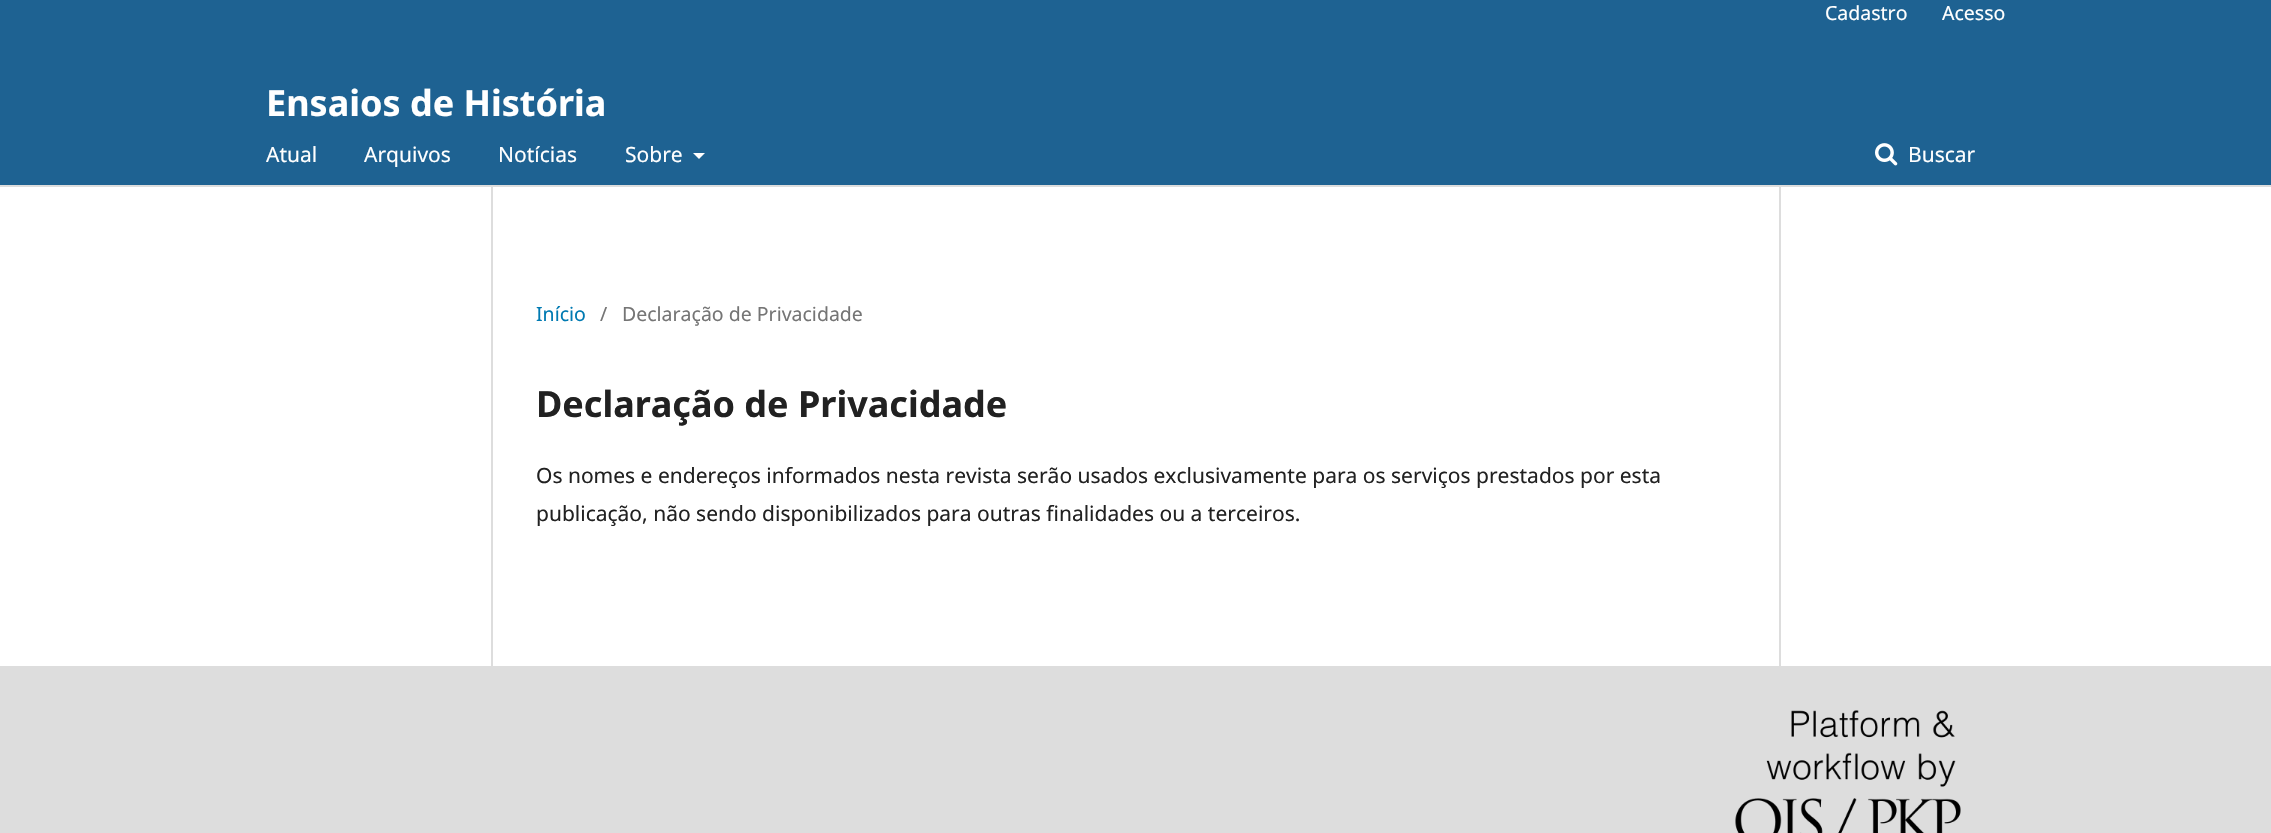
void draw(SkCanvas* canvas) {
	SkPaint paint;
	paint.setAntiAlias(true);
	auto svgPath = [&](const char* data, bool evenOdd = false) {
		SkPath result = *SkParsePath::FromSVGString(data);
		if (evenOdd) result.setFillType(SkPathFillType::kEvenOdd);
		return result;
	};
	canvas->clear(0xffffffff);
	paint.setColor(0xff1e6292);
	canvas->drawRect(SkRect::MakeXYWH(0, 0, 2271, 185), paint);
	paint.setColor(0xffdddddd);
	canvas->drawRect(SkRect::MakeXYWH(0, 185, 2271, 2), paint);
	SkFont f1(fontMgr->matchFamilyStyle("Noto Sans", SkFontStyle::Normal()), 19.5);
	f1.setSubpixel(true);
	paint.setColor(0xffffffff);
	canvas->drawString("Cadastro", 1825, 20, f1, paint);
	canvas->drawString("Acesso", 1942, 20, f1, paint);
	SkFont f2(fontMgr->matchFamilyStyle("Noto Sans", SkFontStyle::Normal()), 21);
	f2.setSubpixel(true);
	canvas->drawString("Atual", 266, 162, f2, paint);
	canvas->drawString("Arquivos", 364, 162, f2, paint);
	canvas->drawString("Notícias", 498, 162, f2, paint);
	canvas->drawString("Sobre", 625, 162, f2, paint);
	canvas->drawPath(svgPath("M693 153H705L699 159Z"), paint);
	canvas->drawImageRect(SkImages::DeferredFromEncodedData(SkData::MakeFromFileName("img1.png")), SkRect::MakeXYWH(1875, 143, 23, 23), SkSamplingOptions());
	canvas->drawString("Buscar", 1908, 162, f2, paint);
	SkFont f3(fontMgr->matchFamilyStyle("Noto Sans", SkFontStyle::Bold()), 36);
	f3.setSubpixel(true);
	canvas->drawString("Ensaios de História", 266, 116, f3, paint);
	paint.setColor(0xffdddddd);
	canvas->drawRect(SkRect::MakeXYWH(491, 186, 2, 480), paint);
	paint.setColor(0xff007ab2);
	canvas->drawString("Início", 536, 321, f1, paint);
	paint.setColor(0xff757575);
	canvas->drawString("/", 600, 321, f1, paint);
	canvas->drawString("Declaração de Privacidade", 622, 321, f1, paint);
	paint.setColor(0xff212121);
	canvas->drawString("Declaração de Privacidade", 536, 417, f3, paint);
	canvas->drawString("Os nomes e endereços informados nesta revista serão usados exclusivamente para os serviços prestados por esta", 536, 483, f2, paint);
	canvas->drawString("publicação, não sendo disponibilizados para outras finalidades ou a terceiros.", 536, 521, f2, paint);
	paint.setColor(0xffdddddd);
	canvas->drawRect(SkRect::MakeXYWH(1779, 186, 2, 480), paint);
	canvas->drawRect(SkRect::MakeXYWH(0, 666, 2271, 167), paint);
	canvas->drawImageRect(SkImages::DeferredFromEncodedData(SkData::MakeFromFileName("img2.png")), SkRect::MakeXYWH(1735, 710, 226, 123), SkSamplingOptions());
}
